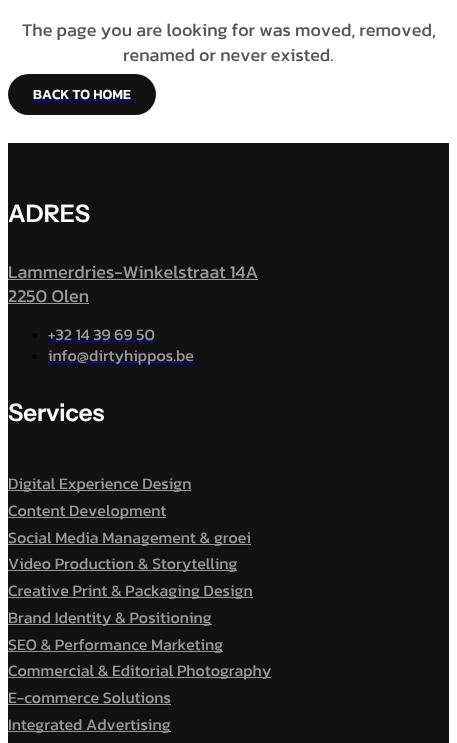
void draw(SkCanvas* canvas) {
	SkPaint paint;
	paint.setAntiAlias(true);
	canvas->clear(0xffffffff);
	SkFont f1(fontMgr->matchFamilyStyle("Kanit", SkFontStyle::Normal()), 18);
	f1.setSubpixel(true);
	paint.setColor(0xff555555);
	canvas->drawString("The page you are looking for was moved, removed,", 22, 36, f1, paint);
	canvas->drawString("renamed or never existed.", 123, 61, f1, paint);
	paint.setColor(0xff121212);
	canvas->drawRoundRect(SkRect::MakeXYWH(8, 74, 148, 41), 20.5, 20.5, paint);
	SkFont f2(fontMgr->matchFamilyStyle("Kanit", SkFontStyle(500, SkFontStyle::kNormal_Width, SkFontStyle::kUpright_Slant)), 14);
	f2.setSubpixel(true);
	paint.setColor(0xffffffff);
	canvas->drawString("BACK TO HOME", 33, 99, f2, paint);
	paint.setColor(0xff0000ee);
	canvas->drawRect(SkRect::MakeXYWH(33, 100, 98, 1), paint);
	paint.setColor(0xff121212);
	canvas->drawRect(SkRect::MakeXYWH(8, 143, 441, 600), paint);
	SkFont f3(fontMgr->matchFamilyStyle("Instrument Sans", SkFontStyle(600, SkFontStyle::kNormal_Width, SkFontStyle::kUpright_Slant)), 24);
	f3.setSubpixel(true);
	paint.setColor(0xffffffff);
	canvas->drawString("ADRES", 8, 222, f3, paint);
	paint.setColor(0xff999999);
	canvas->drawString("Lammerdries-Winkelstraat 14A", 8, 278, f1, paint);
	canvas->drawRect(SkRect::MakeXYWH(8, 279, 250, 1), paint);
	canvas->drawString("2250 Olen", 8, 302, f1, paint);
	canvas->drawRect(SkRect::MakeXYWH(8, 303, 81, 1), paint);
	paint.setColor(0xff000000);
	canvas->drawCircle(34.5, 335.5, 2.5, paint);
	SkFont f4(fontMgr->matchFamilyStyle("Kanit", SkFontStyle::Normal()), 16);
	f4.setSubpixel(true);
	paint.setColor(0xff999999);
	canvas->drawString("+32 14 39 69 50", 48, 340, f4, paint);
	paint.setColor(0xff0000ee);
	canvas->drawRect(SkRect::MakeXYWH(48, 341, 107, 1), paint);
	paint.setColor(0xff000000);
	canvas->drawCircle(34.5, 356.5, 2.5, paint);
	paint.setColor(0xff0000ee);
	canvas->drawRect(SkRect::MakeXYWH(48, 362, 146, 1), paint);
	paint.setColor(0xff999999);
	canvas->drawString("info@dirtyhippos.be", 48, 361, f4, paint);
	paint.setColor(0xffffffff);
	canvas->drawString("Services", 8, 421, f3, paint);
	paint.setColor(0xff999999);
	canvas->drawRect(SkRect::MakeXYWH(8, 490, 183, 1), paint);
	canvas->drawString("Digital Experience Design", 8, 489, f4, paint);
	canvas->drawRect(SkRect::MakeXYWH(8, 517, 158, 1), paint);
	canvas->drawString("Content Development", 8, 516, f4, paint);
	canvas->drawRect(SkRect::MakeXYWH(8, 544, 243, 1), paint);
	canvas->drawString("Social Media Management & groei", 8, 543, f4, paint);
	canvas->drawRect(SkRect::MakeXYWH(8, 570, 229, 1), paint);
	canvas->drawString("Video Production & Storytelling", 8, 569, f4, paint);
	canvas->drawRect(SkRect::MakeXYWH(8, 597, 245, 1), paint);
	canvas->drawString("Creative Print & Packaging Design", 8, 596, f4, paint);
	canvas->drawRect(SkRect::MakeXYWH(8, 624, 204, 1), paint);
	canvas->drawString("Brand Identity & Positioning", 8, 623, f4, paint);
	canvas->drawRect(SkRect::MakeXYWH(8, 651, 215, 1), paint);
	canvas->drawString("SEO & Performance Marketing", 8, 650, f4, paint);
	canvas->drawRect(SkRect::MakeXYWH(8, 677, 263, 1), paint);
	canvas->drawString("Commercial & Editorial Photography", 8, 676, f4, paint);
	canvas->drawString("E-commerce Solutions", 8, 703, f4, paint);
	canvas->drawRect(SkRect::MakeXYWH(8, 704, 163, 1), paint);
	canvas->drawRect(SkRect::MakeXYWH(8, 731, 163, 1), paint);
	canvas->drawString("Integrated Advertising", 8, 730, f4, paint);
}
